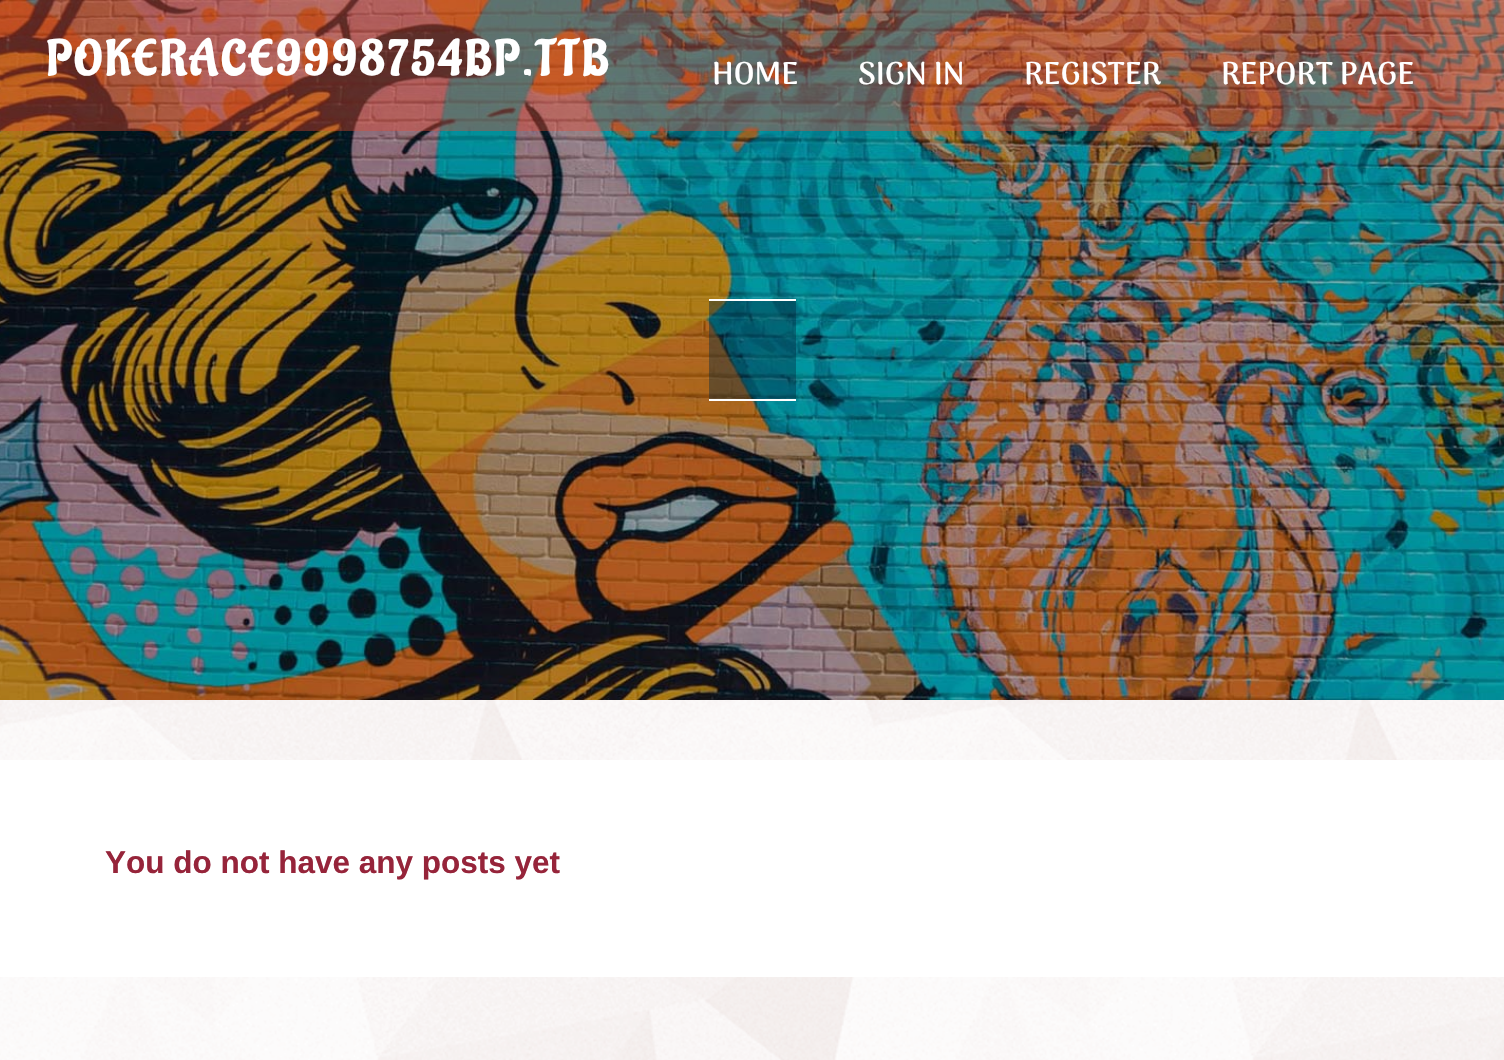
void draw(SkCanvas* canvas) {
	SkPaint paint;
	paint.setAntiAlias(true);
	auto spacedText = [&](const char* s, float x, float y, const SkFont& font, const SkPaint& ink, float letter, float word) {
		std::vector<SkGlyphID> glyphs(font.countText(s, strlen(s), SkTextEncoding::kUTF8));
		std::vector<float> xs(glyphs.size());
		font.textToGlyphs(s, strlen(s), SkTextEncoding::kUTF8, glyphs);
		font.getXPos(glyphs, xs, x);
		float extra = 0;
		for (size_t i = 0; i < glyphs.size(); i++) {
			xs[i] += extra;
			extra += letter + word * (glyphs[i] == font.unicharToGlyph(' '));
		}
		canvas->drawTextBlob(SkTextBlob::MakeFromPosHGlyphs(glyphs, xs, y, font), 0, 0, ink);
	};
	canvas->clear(0xffffffff);
	canvas->drawImageRect(SkImages::DeferredFromEncodedData(SkData::MakeFromFileName("img1.png")), SkRect::MakeXYWH(0, 700, 1504, 360), SkSamplingOptions());
	canvas->drawImageRect(SkImages::DeferredFromEncodedData(SkData::MakeFromFileName("img2.png")), SkRect::MakeXYWH(0, 0, 1504, 700), SkSamplingOptions());
	paint.setColor(0x66e5452b);
	canvas->drawRect(SkRect::MakeXYWH(0, 0, 1504, 131), paint);
	SkFont f1(fontMgr->matchFamilyStyle("Aladin", SkFontStyle::Bold()), 49);
	f1.setSubpixel(true);
	paint.setColor(0xffffffff);
	spacedText("POKERACE9998754BP.TTB", 46, 75, f1, paint, 3.5, 0);
	SkFont f2(fontMgr->matchFamilyStyle("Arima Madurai", SkFontStyle::Bold()), 31.5);
	f2.setSubpixel(true);
	canvas->drawString("HOME", 712, 84, f2, paint);
	canvas->drawString("SIGN IN", 858, 84, f2, paint);
	canvas->drawString("REGISTER", 1024, 84, f2, paint);
	canvas->drawString("REPORT PAGE", 1221, 84, f2, paint);
	paint.setColor(0x6600263b);
	canvas->drawRect(SkRect::MakeXYWH(709, 301, 87, 98), paint);
	paint.setColor(0xffffffff);
	canvas->drawRect(SkRect::MakeXYWH(709, 299, 87, 2), paint);
	canvas->drawRect(SkRect::MakeXYWH(709, 399, 87, 2), paint);
	canvas->drawRect(SkRect::MakeXYWH(0, 760, 1504, 217), paint);
	SkFont f3(fontMgr->matchFamilyStyle("Liberation Sans", SkFontStyle::Bold()), 31.5);
	f3.setSubpixel(true);
	paint.setColor(0xff96243a);
	canvas->drawString("You do not have any posts yet", 105, 873, f3, paint);
}
